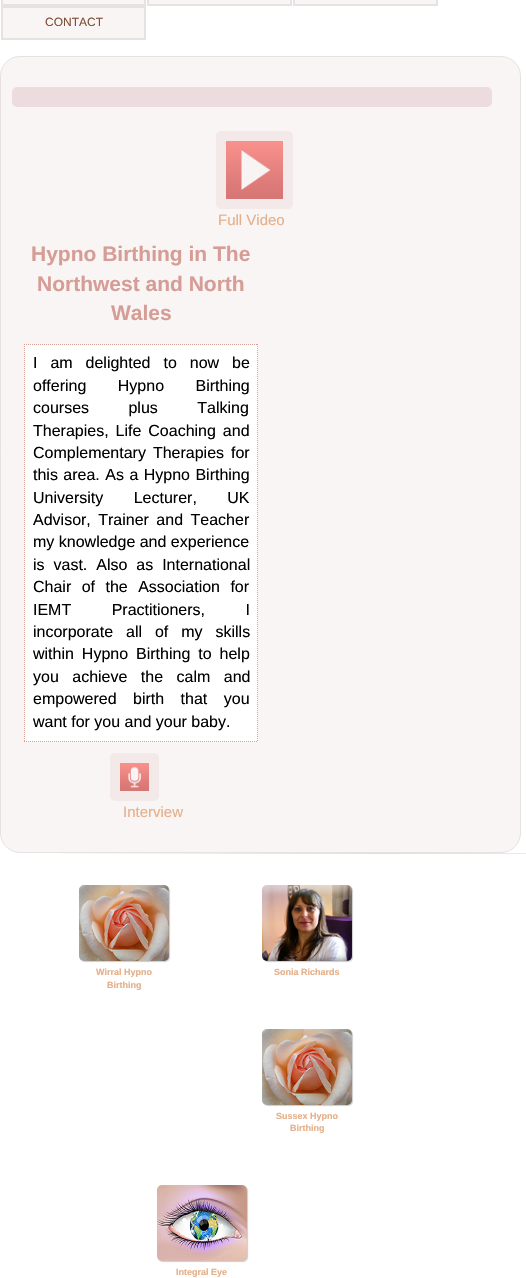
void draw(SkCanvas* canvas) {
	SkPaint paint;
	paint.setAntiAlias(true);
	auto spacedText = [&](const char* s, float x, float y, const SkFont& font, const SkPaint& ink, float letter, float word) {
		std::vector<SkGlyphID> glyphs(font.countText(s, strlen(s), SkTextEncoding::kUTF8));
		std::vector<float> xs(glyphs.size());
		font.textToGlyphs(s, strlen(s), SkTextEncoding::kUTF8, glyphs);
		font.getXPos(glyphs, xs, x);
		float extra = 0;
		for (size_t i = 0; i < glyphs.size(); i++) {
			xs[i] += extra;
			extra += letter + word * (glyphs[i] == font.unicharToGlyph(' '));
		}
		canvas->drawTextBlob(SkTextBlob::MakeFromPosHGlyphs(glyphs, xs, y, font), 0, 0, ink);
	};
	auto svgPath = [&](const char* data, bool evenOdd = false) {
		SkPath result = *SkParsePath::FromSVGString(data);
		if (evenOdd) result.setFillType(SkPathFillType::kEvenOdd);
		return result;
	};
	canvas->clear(0xffffffff);
	paint.setColor(0xfffaf5f5);
	canvas->drawPath(svgPath("M4-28H143C145-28 146-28 146-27V5C146 6 145 6 143 6H4C2 6 1 6 1 5V-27C1-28 2-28 4-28Z"), paint);
	paint.setStroke(true);
	paint.setStrokeWidth(2);
	paint.setColor(0xffe7e2e2);
	canvas->drawPath(svgPath("M4-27H145V5H2V-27Z"), paint);
	paint.setStroke(false);
	paint.setColor(0xfffaf5f5);
	canvas->drawPath(svgPath("M150-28H289C291-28 292-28 292-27V5C292 6 291 6 289 6H150C148 6 147 6 147 5V-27C147-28 148-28 150-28Z"), paint);
	paint.setStroke(true);
	paint.setColor(0xffe7e2e2);
	canvas->drawPath(svgPath("M150-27H291V5H148V-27Z"), paint);
	paint.setStroke(false);
	paint.setColor(0xfffaf5f5);
	canvas->drawPath(svgPath("M296-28H435C437-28 438-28 438-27V5C438 6 437 6 435 6H296C294 6 293 6 293 5V-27C293-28 294-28 296-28Z"), paint);
	paint.setStroke(true);
	paint.setColor(0xffe7e2e2);
	canvas->drawPath(svgPath("M296-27H437V5H294V-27Z"), paint);
	paint.setStroke(false);
	paint.setColor(0xfffaf5f5);
	canvas->drawPath(svgPath("M4 6H143C145 6 146 6 146 7V39C146 40 145 40 143 40H4C2 40 1 40 1 39V7C1 6 2 6 4 6Z"), paint);
	paint.setStroke(true);
	paint.setColor(0xffe7e2e2);
	canvas->drawPath(svgPath("M4 7H145V39H2V7Z"), paint);
	SkFont f1(fontMgr->matchFamilyStyle("Liberation Sans", SkFontStyle::Normal()), 12);
	f1.setSubpixel(true);
	paint.setStroke(false);
	paint.setColor(0xff7e4d35);
	canvas->drawString("CONTACT", 45, 26, f1, paint);
	paint.setColor(0xfffaf5f5);
	canvas->drawRoundRect(SkRect::MakeXYWH(0.5, 56.5, 520, 796), 19.5, 19.5, paint);
	paint.setStroke(true);
	paint.setStrokeWidth(1);
	paint.setColor(0xffe7e2e2);
	canvas->drawRoundRect(SkRect::MakeXYWH(0.5, 56.5, 520, 796), 19.5, 19.5, paint);
	paint.setStroke(false);
	paint.setColor(0xffeddcdd);
	canvas->drawRoundRect(SkRect::MakeXYWH(12, 87, 480, 20), 5, 5, paint);
	paint.setColor(0xfff3e9e9);
	canvas->drawRoundRect(SkRect::MakeXYWH(216, 131, 77, 78), 5, 5, paint);
	canvas->drawImageRect(SkImages::DeferredFromEncodedData(SkData::MakeFromFileName("img1.png")), SkRect::MakeXYWH(226, 141, 57, 58), SkSamplingOptions());
	SkFont f2(fontMgr->matchFamilyStyle("Liberation Sans", SkFontStyle::Normal()), 15);
	f2.setSubpixel(true);
	paint.setColor(0xffe4af89);
	canvas->drawString("Full Video", 218, 225, f2, paint);
	SkFont f3(fontMgr->matchFamilyStyle("Liberation Sans", SkFontStyle::Bold()), 21);
	f3.setSubpixel(true);
	paint.setColor(0xffd59d95);
	canvas->drawString("Hypno Birthing in The", 31, 261, f3, paint);
	canvas->drawString("Northwest and North", 37, 291, f3, paint);
	canvas->drawString("Wales", 111, 320, f3, paint);
	paint.setColor(0xffffffff);
	canvas->drawRect(SkRect::MakeXYWH(24, 344, 234, 398), paint);
	paint.setStroke(true);
	paint.setColor(0xffd69d96);
	paint.setPathEffect(SkDashPathEffect::Make({{1, 1}}, 0));
	canvas->drawPath(svgPath("M24 344.5H258"), paint);
	paint.setPathEffect(nullptr);
	paint.setPathEffect(SkDashPathEffect::Make({{1, 1}}, 0));
	canvas->drawPath(svgPath("M257.5 344V742"), paint);
	paint.setPathEffect(nullptr);
	paint.setPathEffect(SkDashPathEffect::Make({{1, 1}}, 0));
	canvas->drawPath(svgPath("M24 741.5H258"), paint);
	paint.setPathEffect(nullptr);
	paint.setColor(0xf0d3978f);
	paint.setPathEffect(SkDashPathEffect::Make({{1, 1}}, 0));
	canvas->drawPath(svgPath("M24.5 344V742"), paint);
	paint.setPathEffect(nullptr);
	SkFont f4(fontMgr->matchFamilyStyle("Liberation Sans", SkFontStyle::Normal()), 16);
	f4.setSubpixel(true);
	paint.setStroke(false);
	paint.setColor(0xff000000);
	spacedText("I am delighted to now be", 33, 368, f4, paint, 0, 8.5);
	spacedText("offering Hypno Birthing", 33, 391, f4, paint, 0, 27);
	spacedText("courses plus Talking", 33, 413, f4, paint, 0, 35);
	spacedText("Therapies, Life Coaching and", 33, 436, f4, paint, 0, 2.5);
	spacedText("Complementary Therapies for", 33, 458, f4, paint, 0, 2.5);
	spacedText("this area. As a Hypno Birthing", 33, 480, f4, paint, 0, 1);
	spacedText("University Lecturer, UK", 33, 503, f4, paint, 0, 26);
	spacedText("Advisor, Trainer and Teacher", 33, 525, f4, paint, 0, 3);
	canvas->drawString("my knowledge and experience", 33, 547, f4, paint);
	spacedText("is vast. Also as International", 33, 570, f4, paint, 0, 4.5);
	spacedText("Chair of the Association for", 33, 592, f4, paint, 0, 6);
	spacedText("IEMT Practitioners, I", 33, 615, f4, paint, 0, 36);
	spacedText("incorporate all of my skills", 33, 637, f4, paint, 0, 8.5);
	spacedText("within Hypno Birthing to help", 33, 659, f4, paint, 0, 3.5);
	spacedText("you achieve the calm and", 33, 682, f4, paint, 0, 9);
	spacedText("empowered birth that you", 33, 704, f4, paint, 0, 12);
	canvas->drawString("want for you and your baby.", 33, 727, f4, paint);
	paint.setColor(0xfff3e9e9);
	canvas->drawRoundRect(SkRect::MakeXYWH(110, 753, 49, 48), 5, 5, paint);
	canvas->drawImageRect(SkImages::DeferredFromEncodedData(SkData::MakeFromFileName("img2.png")), SkRect::MakeXYWH(120, 763, 29, 28), SkSamplingOptions());
	paint.setColor(0xffe4af89);
	canvas->drawString("Interview", 123, 817, f2, paint);
	canvas->drawImageRect(SkImages::DeferredFromEncodedData(SkData::MakeFromFileName("img3.png")), SkRect::MakeXYWH(62, 853, 464, 1), SkSamplingOptions());
	paint.setColor(0xffcccccc);
	paint.setMaskFilter(SkMaskFilter::MakeBlur(kNormal_SkBlurStyle, 0.5));
	canvas->drawRoundRect(SkRect::MakeXYWH(80, 886, 90, 76), 5, 5, paint);
	paint.setMaskFilter(nullptr);
	canvas->drawImageRect(SkImages::DeferredFromEncodedData(SkData::MakeFromFileName("img4.png")), SkRect::MakeXYWH(79, 885, 90, 76), SkSamplingOptions());
	SkFont f5(fontMgr->matchFamilyStyle("Liberation Sans", SkFontStyle::Bold()), 9);
	f5.setSubpixel(true);
	paint.setColor(0xffe4af89);
	canvas->drawString("Wirral Hypno", 96, 975, f5, paint);
	canvas->drawString("Birthing", 107, 988, f5, paint);
	paint.setColor(0xffcccccc);
	paint.setMaskFilter(SkMaskFilter::MakeBlur(kNormal_SkBlurStyle, 0.5));
	canvas->drawRoundRect(SkRect::MakeXYWH(263, 886, 90, 76), 5, 5, paint);
	paint.setMaskFilter(nullptr);
	canvas->drawImageRect(SkImages::DeferredFromEncodedData(SkData::MakeFromFileName("img5.png")), SkRect::MakeXYWH(262, 885, 90, 76), SkSamplingOptions());
	paint.setColor(0xffe4af89);
	canvas->drawString("Sonia Richards", 274, 975, f5, paint);
	paint.setColor(0xffcccccc);
	paint.setMaskFilter(SkMaskFilter::MakeBlur(kNormal_SkBlurStyle, 0.5));
	canvas->drawRoundRect(SkRect::MakeXYWH(263, 1030, 90, 76), 5, 5, paint);
	paint.setMaskFilter(nullptr);
	canvas->drawImageRect(SkImages::DeferredFromEncodedData(SkData::MakeFromFileName("img6.png")), SkRect::MakeXYWH(262, 1029, 90, 76), SkSamplingOptions());
	paint.setColor(0xffe4af89);
	canvas->drawString("Sussex Hypno", 276, 1119, f5, paint);
	canvas->drawString("Birthing", 290, 1131, f5, paint);
	paint.setColor(0xffcccccc);
	paint.setMaskFilter(SkMaskFilter::MakeBlur(kNormal_SkBlurStyle, 0.5));
	canvas->drawRoundRect(SkRect::MakeXYWH(158, 1186, 90, 76), 5, 5, paint);
	paint.setMaskFilter(nullptr);
	canvas->drawImageRect(SkImages::DeferredFromEncodedData(SkData::MakeFromFileName("img7.png")), SkRect::MakeXYWH(157, 1185, 90, 76), SkSamplingOptions());
	paint.setColor(0xffe4af89);
	canvas->drawString("Integral Eye", 176, 1275, f5, paint);
}
